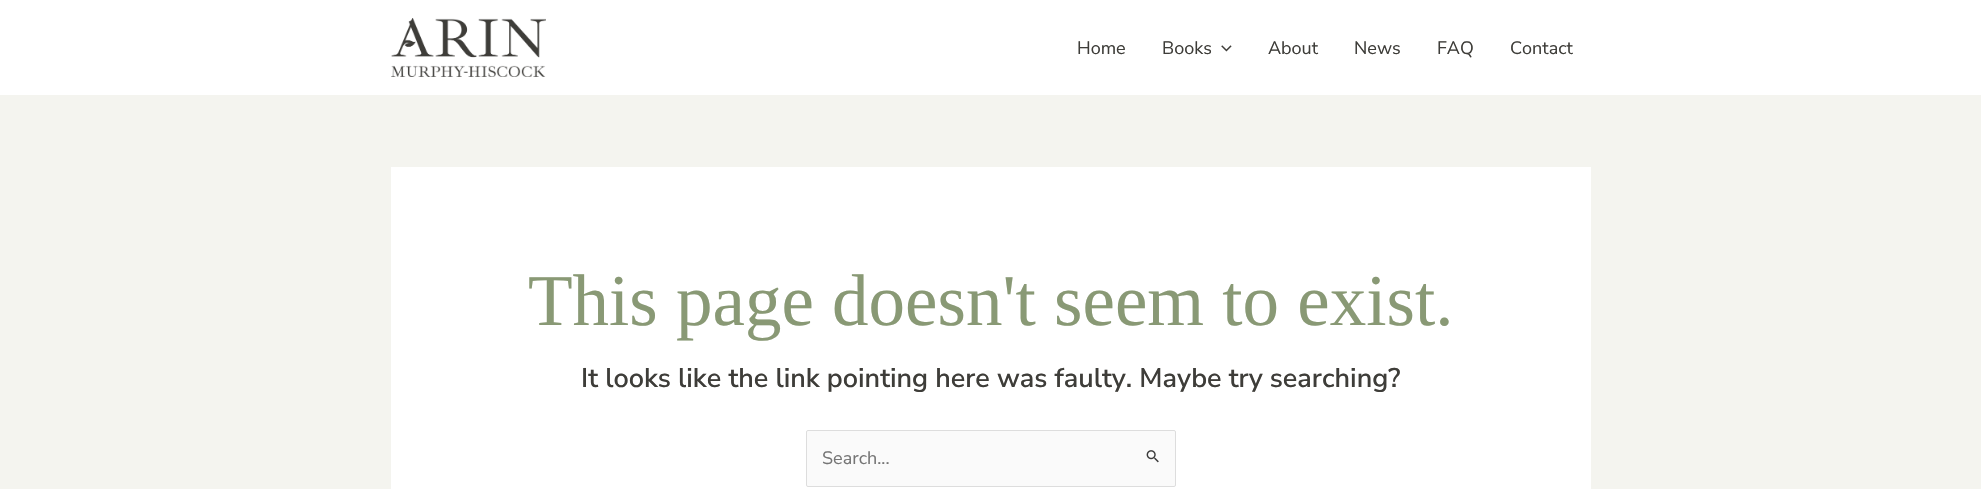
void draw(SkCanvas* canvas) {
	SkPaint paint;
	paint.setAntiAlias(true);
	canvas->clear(0xfff4f4ef);
	paint.setColor(0xffffffff);
	canvas->drawRect(SkRect::MakeXYWH(0, 0, 1981, 95), paint);
	canvas->drawImageRect(SkImages::DeferredFromEncodedData(SkData::MakeFromFileName("img1.png")), SkRect::MakeXYWH(391, 18, 155, 59), SkSamplingOptions());
	SkFont f1(fontMgr->matchFamilyStyle("Nunito Sans", SkFontStyle::Normal()), 18);
	f1.setSubpixel(true);
	paint.setColor(0xff3e3d39);
	canvas->drawString("Home", 1077, 54, f1, paint);
	canvas->drawString("Books", 1162, 54, f1, paint);
	canvas->drawImageRect(SkImages::DeferredFromEncodedData(SkData::MakeFromFileName("img2.png")), SkRect::MakeXYWH(1221, 45, 11, 7), SkSamplingOptions());
	canvas->drawString("About", 1268, 54, f1, paint);
	canvas->drawString("News", 1354, 54, f1, paint);
	canvas->drawString("FAQ", 1437, 54, f1, paint);
	canvas->drawString("Contact", 1510, 54, f1, paint);
	paint.setColor(0xffffffff);
	canvas->drawRect(SkRect::MakeXYWH(391, 167, 1200, 322), paint);
	SkFont f2(fontMgr->matchFamilyStyle("Liberation Serif", SkFontStyle::Normal()), 73);
	f2.setSubpixel(true);
	paint.setColor(0xff899975);
	canvas->drawString("This page doesn't seem to exist.", 528, 325, f2, paint);
	SkFont f3(fontMgr->matchFamilyStyle("Nunito Sans", SkFontStyle(600, SkFontStyle::kNormal_Width, SkFontStyle::kUpright_Slant)), 27);
	f3.setSubpixel(true);
	paint.setColor(0xff3e3d39);
	canvas->drawString("It looks like the link pointing here was faulty. Maybe try searching?", 581, 387, f3, paint);
	paint.setColor(0xfffafafa);
	canvas->drawRoundRect(SkRect::MakeXYWH(806.5, 430.5, 369, 56), 1.5, 1.5, paint);
	paint.setStroke(true);
	paint.setStrokeWidth(1);
	paint.setColor(0xffdddddd);
	canvas->drawRoundRect(SkRect::MakeXYWH(806.5, 430.5, 369, 56), 1.5, 1.5, paint);
	paint.setStroke(false);
	paint.setColor(0xff757575);
	canvas->drawString("Search...", 822, 464, f1, paint);
	canvas->drawImageRect(SkImages::DeferredFromEncodedData(SkData::MakeFromFileName("img3.png")), SkRect::MakeXYWH(1146, 450, 13, 13), SkSamplingOptions());
}
